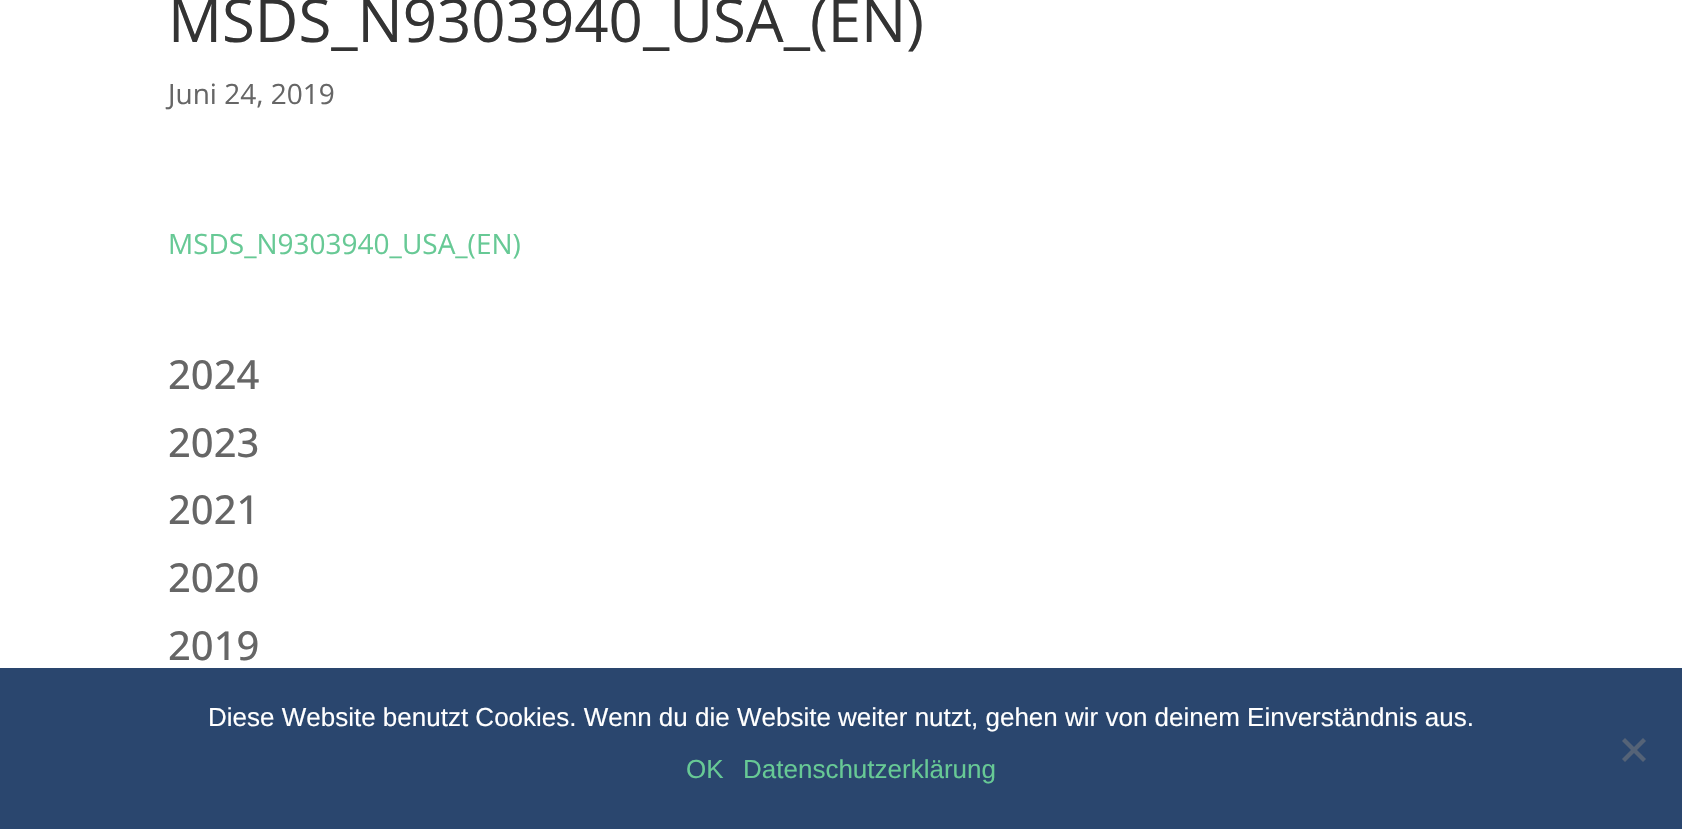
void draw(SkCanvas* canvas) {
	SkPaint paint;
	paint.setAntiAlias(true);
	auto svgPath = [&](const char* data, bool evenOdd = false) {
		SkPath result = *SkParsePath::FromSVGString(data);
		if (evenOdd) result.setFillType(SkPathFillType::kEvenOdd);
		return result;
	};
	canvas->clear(0xffffffff);
	SkFont f1(fontMgr->matchFamilyStyle("Open Sans", SkFontStyle::Normal()), 60);
	f1.setSubpixel(true);
	paint.setColor(0xff333333);
	canvas->drawString("MSDS_N9303940_USA_(EN)", 168, 42, f1, paint);
	SkFont f2(fontMgr->matchFamilyStyle("Open Sans", SkFontStyle::Normal()), 28);
	f2.setSubpixel(true);
	paint.setColor(0xff666666);
	canvas->drawString("Juni 24, 2019", 168, 104, f2, paint);
	paint.setColor(0xff67c995);
	canvas->drawString("MSDS_N9303940_USA_(EN)", 168, 254, f2, paint);
	SkFont f3(fontMgr->matchFamilyStyle("Open Sans", SkFontStyle(500, SkFontStyle::kNormal_Width, SkFontStyle::kUpright_Slant)), 40);
	f3.setSubpixel(true);
	paint.setColor(0xff666666);
	canvas->drawString("2024", 168, 389, f3, paint);
	canvas->drawString("2023", 168, 457, f3, paint);
	canvas->drawString("2021", 168, 524, f3, paint);
	canvas->drawString("2020", 168, 592, f3, paint);
	canvas->drawString("2019", 168, 660, f3, paint);
	paint.setColor(0xff2a466e);
	canvas->drawRect(SkRect::MakeXYWH(0, 668, 1682, 161), paint);
	SkFont f4(fontMgr->matchFamilyStyle("Liberation Sans", SkFontStyle::Normal()), 26);
	f4.setSubpixel(true);
	paint.setColor(0xffffffff);
	canvas->drawString("Diese Website benutzt Cookies. Wenn du die Website weiter nutzt, gehen wir von deinem Einverständnis aus.", 208, 726, f4, paint);
	paint.setColor(0xff556377);
	canvas->drawPath(svgPath("M1643 738L1646 741L1625 762L1622 759Z"), paint);
	canvas->drawPath(svgPath("M1622 741L1625 738L1646 759L1643 762Z"), paint);
	paint.setColor(0xff67c995);
	canvas->drawString("OK", 686, 778, f4, paint);
	canvas->drawString("Datenschutzerklärung", 743, 778, f4, paint);
}
